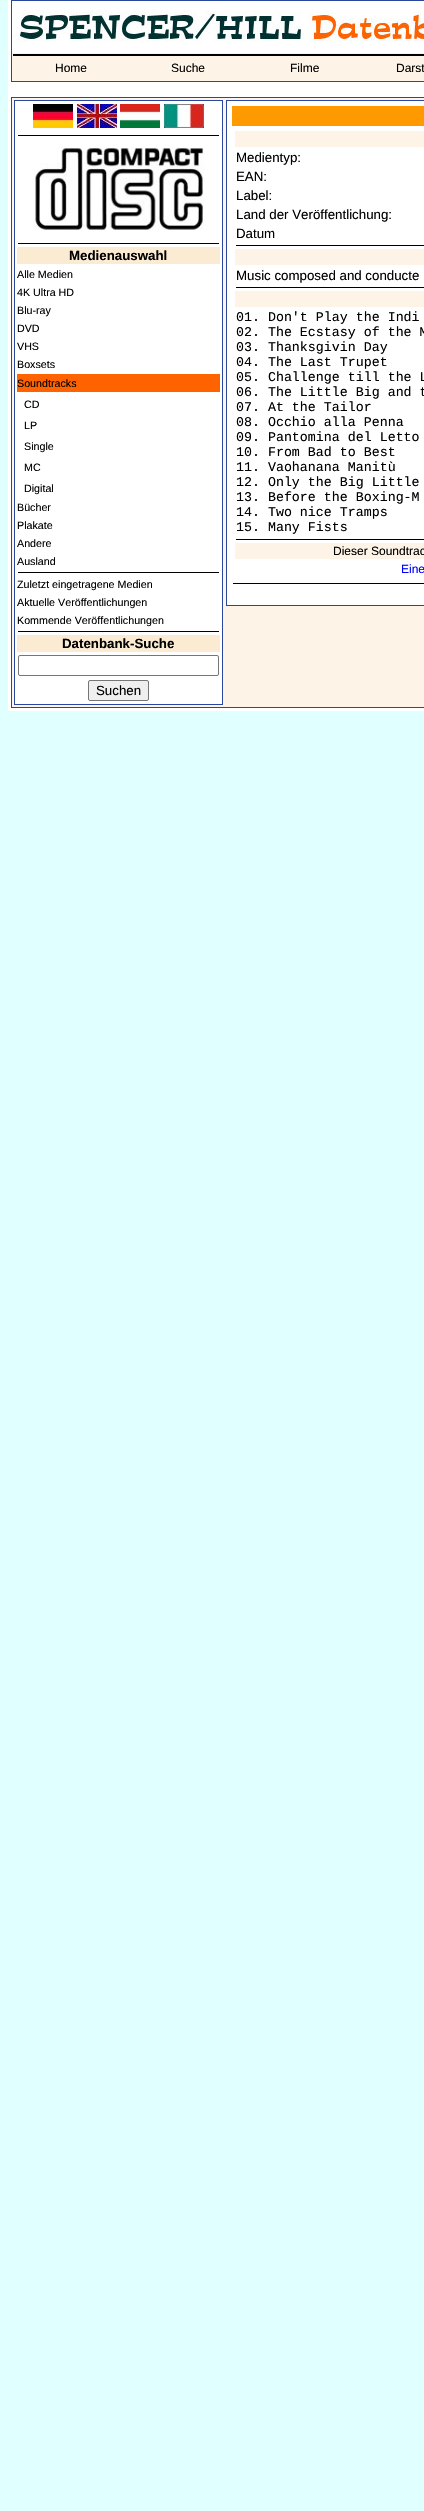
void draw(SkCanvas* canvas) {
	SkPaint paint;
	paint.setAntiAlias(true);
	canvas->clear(0xffe0ffff);
	paint.setColor(0xffffffff);
	canvas->drawRect(SkRect::MakeXYWH(8, 0, 416, 711), paint);
	paint.setStroke(true);
	paint.setStrokeWidth(1);
	paint.setColor(0xff29479f);
	canvas->drawRect(SkRect::MakeXYWH(11.5, 0.5, 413, 81), paint);
	canvas->drawImageRect(SkImages::DeferredFromEncodedData(SkData::MakeFromFileName("img1.png")), SkRect::MakeXYWH(13, 10, 411, 32), SkSamplingOptions());
	paint.setStroke(false);
	paint.setColor(0xfffdf4e7);
	canvas->drawRect(SkRect::MakeXYWH(12, 53, 412, 28), paint);
	paint.setColor(0xff000000);
	canvas->drawRect(SkRect::MakeXYWH(13, 54, 411, 2), paint);
	SkFont f1(fontMgr->matchFamilyStyle("Liberation Sans", SkFontStyle::Normal()), 12);
	f1.setSubpixel(true);
	canvas->drawString("Home", 55, 72, f1, paint);
	canvas->drawString("Suche", 171, 72, f1, paint);
	canvas->drawString("Filme", 290, 72, f1, paint);
	canvas->drawString("Darst", 396, 72, f1, paint);
	paint.setColor(0xfffdf4e7);
	canvas->drawRect(SkRect::MakeXYWH(11.5, 97.5, 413, 610), paint);
	paint.setStroke(true);
	paint.setColor(0xff29479f);
	canvas->drawRect(SkRect::MakeXYWH(11.5, 97.5, 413, 610), paint);
	paint.setStroke(false);
	paint.setColor(0xffffffff);
	canvas->drawRect(SkRect::MakeXYWH(14.5, 100.5, 208, 604), paint);
	paint.setStroke(true);
	paint.setColor(0xff29479f);
	canvas->drawRect(SkRect::MakeXYWH(14.5, 100.5, 208, 604), paint);
	canvas->drawImageRect(SkImages::DeferredFromEncodedData(SkData::MakeFromFileName("img2.png")), SkRect::MakeXYWH(33, 104, 40, 24), SkSamplingOptions());
	canvas->drawImageRect(SkImages::DeferredFromEncodedData(SkData::MakeFromFileName("img3.png")), SkRect::MakeXYWH(77, 104, 40, 24), SkSamplingOptions());
	canvas->drawImageRect(SkImages::DeferredFromEncodedData(SkData::MakeFromFileName("img4.png")), SkRect::MakeXYWH(120, 104, 40, 24), SkSamplingOptions());
	canvas->drawImageRect(SkImages::DeferredFromEncodedData(SkData::MakeFromFileName("img5.png")), SkRect::MakeXYWH(164, 104, 40, 24), SkSamplingOptions());
	paint.setStroke(false);
	paint.setColor(0xff000000);
	canvas->drawRect(SkRect::MakeXYWH(18, 135, 201, 1), paint);
	canvas->drawImageRect(SkImages::DeferredFromEncodedData(SkData::MakeFromFileName("img6.png")), SkRect::MakeXYWH(34, 147, 171, 83), SkSamplingOptions());
	canvas->drawRect(SkRect::MakeXYWH(18, 243, 201, 1), paint);
	paint.setColor(0xfffbebd3);
	canvas->drawRect(SkRect::MakeXYWH(17, 247, 203, 17), paint);
	SkFont f2(fontMgr->matchFamilyStyle("Liberation Sans", SkFontStyle::Bold()), 13.3);
	f2.setSubpixel(true);
	paint.setColor(0xff000000);
	canvas->drawString("Medienauswahl", 69, 260, f2, paint);
	SkFont f3(fontMgr->matchFamilyStyle("Liberation Sans", SkFontStyle::Normal()), 10.7);
	f3.setSubpixel(true);
	canvas->drawString("Alle Medien", 17, 278, f3, paint);
	canvas->drawString("4K Ultra HD", 17, 296, f3, paint);
	canvas->drawString("Blu-ray", 17, 314, f3, paint);
	canvas->drawString("DVD", 17, 332, f3, paint);
	canvas->drawString("VHS", 17, 350, f3, paint);
	canvas->drawString("Boxsets", 17, 368, f3, paint);
	paint.setColor(0xffff6300);
	canvas->drawRect(SkRect::MakeXYWH(17, 374, 203, 18), paint);
	paint.setColor(0xff000000);
	canvas->drawString("Soundtracks", 17, 387, f3, paint);
	canvas->drawString("CD", 24, 408, f3, paint);
	canvas->drawString("LP", 24, 429, f3, paint);
	canvas->drawString("Single", 24, 450, f3, paint);
	canvas->drawString("MC", 24, 471, f3, paint);
	canvas->drawString("Digital", 24, 492, f3, paint);
	canvas->drawString("Bücher", 17, 511, f3, paint);
	canvas->drawString("Plakate", 17, 529, f3, paint);
	canvas->drawString("Andere", 17, 547, f3, paint);
	canvas->drawString("Ausland", 17, 565, f3, paint);
	canvas->drawRect(SkRect::MakeXYWH(18, 572, 201, 1), paint);
	canvas->drawString("Zuletzt eingetragene Medien", 17, 588, f3, paint);
	canvas->drawString("Aktuelle Veröffentlichungen", 17, 606, f3, paint);
	canvas->drawString("Kommende Veröffentlichungen", 17, 624, f3, paint);
	canvas->drawRect(SkRect::MakeXYWH(18, 631, 201, 1), paint);
	paint.setColor(0xfffbebd3);
	canvas->drawRect(SkRect::MakeXYWH(17, 635, 203, 17), paint);
	paint.setColor(0xff000000);
	canvas->drawString("Datenbank-Suche", 62, 648, f2, paint);
	paint.setStroke(true);
	paint.setColor(0xff767676);
	canvas->drawRoundRect(SkRect::MakeXYWH(18.5, 655.5, 200, 20), 1.5, 1.5, paint);
	paint.setStroke(false);
	paint.setColor(0xffefefef);
	canvas->drawRoundRect(SkRect::MakeXYWH(88.5, 680.5, 60, 20), 1.5, 1.5, paint);
	paint.setStroke(true);
	paint.setColor(0xff767676);
	canvas->drawRoundRect(SkRect::MakeXYWH(88.5, 680.5, 60, 20), 1.5, 1.5, paint);
	SkFont f4(fontMgr->matchFamilyStyle("Liberation Sans", SkFontStyle::Normal()), 13.3);
	f4.setSubpixel(true);
	paint.setStroke(false);
	paint.setColor(0xff000000);
	canvas->drawString("Suchen", 96, 695, f4, paint);
	paint.setColor(0xffffffff);
	canvas->drawRect(SkRect::MakeXYWH(226.5, 100.5, 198, 505), paint);
	paint.setStroke(true);
	paint.setColor(0xff29479f);
	canvas->drawRect(SkRect::MakeXYWH(226.5, 100.5, 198, 505), paint);
	paint.setStroke(false);
	paint.setColor(0xffff9900);
	canvas->drawRect(SkRect::MakeXYWH(232, 106, 192, 20), paint);
	paint.setColor(0xfffdf4e7);
	canvas->drawRect(SkRect::MakeXYWH(235, 131, 189, 16), paint);
	paint.setColor(0xff000000);
	canvas->drawString("Medientyp:", 236, 162, f4, paint);
	canvas->drawString("EAN:", 236, 181, f4, paint);
	canvas->drawString("Label:", 236, 200, f4, paint);
	canvas->drawString("Land der Veröffentlichung:", 236, 219, f4, paint);
	canvas->drawString("Datum", 236, 238, f4, paint);
	canvas->drawRect(SkRect::MakeXYWH(236, 245, 188, 1), paint);
	paint.setColor(0xfffdf4e7);
	canvas->drawRect(SkRect::MakeXYWH(235, 249, 189, 16), paint);
	paint.setColor(0xff000000);
	canvas->drawString("Music composed and conducte", 236, 280, f4, paint);
	canvas->drawRect(SkRect::MakeXYWH(236, 287, 188, 1), paint);
	paint.setColor(0xfffdf4e7);
	canvas->drawRect(SkRect::MakeXYWH(235, 291, 189, 16), paint);
	SkFont f5(fontMgr->matchFamilyStyle("Liberation Mono", SkFontStyle::Normal()), 13.3);
	f5.setSubpixel(true);
	paint.setColor(0xff000000);
	canvas->drawString("01. Don't Play the Indi", 236, 321, f5, paint);
	canvas->drawString("02. The Ecstasy of the M", 236, 336, f5, paint);
	canvas->drawString("03. Thanksgivin Day", 236, 351, f5, paint);
	canvas->drawString("04. The Last Trupet", 236, 366, f5, paint);
	canvas->drawString("05. Challenge till the L", 236, 381, f5, paint);
	canvas->drawString("06. The Little Big and t", 236, 396, f5, paint);
	canvas->drawString("07. At the Tailor", 236, 411, f5, paint);
	canvas->drawString("08. Occhio alla Penna", 236, 426, f5, paint);
	canvas->drawString("09. Pantomina del Letto", 236, 441, f5, paint);
	canvas->drawString("10. From Bad to Best", 236, 456, f5, paint);
	canvas->drawString("11. Vaohanana Manitù", 236, 471, f5, paint);
	canvas->drawString("12. Only the Big Little", 236, 486, f5, paint);
	canvas->drawString("13. Before the Boxing-M", 236, 501, f5, paint);
	canvas->drawString("14. Two nice Tramps", 236, 516, f5, paint);
	canvas->drawString("15. Many Fists", 236, 531, f5, paint);
	canvas->drawRect(SkRect::MakeXYWH(236, 539, 188, 1), paint);
	paint.setColor(0xfffdf4e7);
	canvas->drawRect(SkRect::MakeXYWH(235, 543, 189, 16), paint);
	paint.setColor(0xff000000);
	canvas->drawString("Dieser Soundtrac", 333, 555, f1, paint);
	paint.setColor(0xff0000ff);
	canvas->drawString("Eine", 401, 573, f1, paint);
	paint.setColor(0xff000000);
	canvas->drawRect(SkRect::MakeXYWH(233, 583, 191, 1), paint);
}
